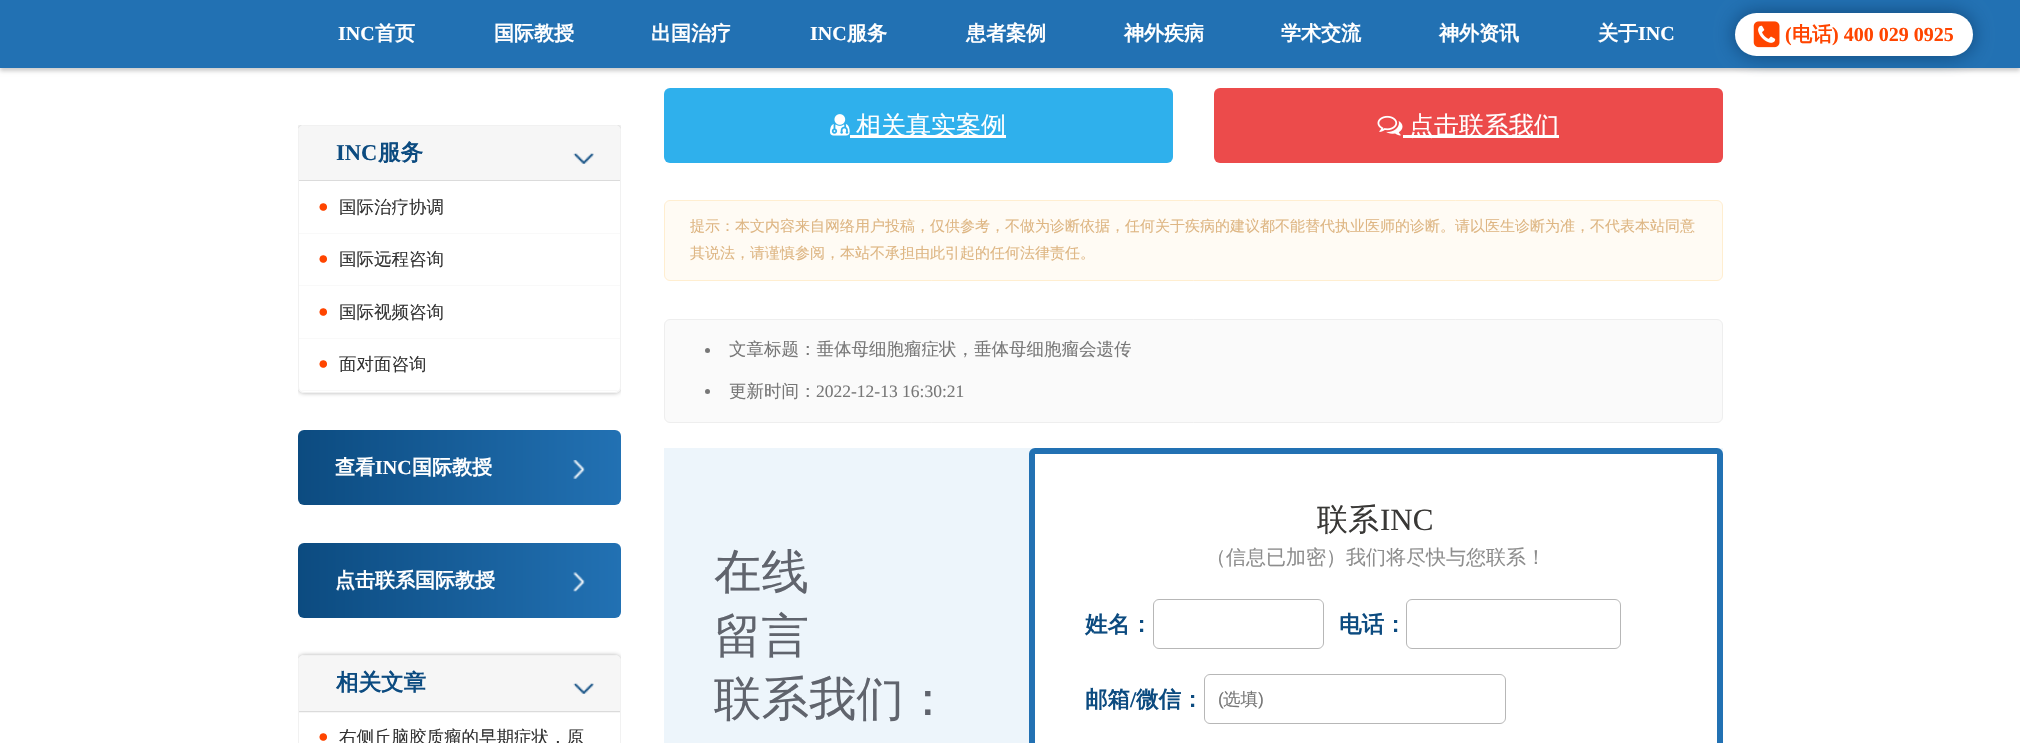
void draw(SkCanvas* canvas) {
	SkPaint paint;
	paint.setAntiAlias(true);
	auto svgPath = [&](const char* data, bool evenOdd = false) {
		SkPath result = *SkParsePath::FromSVGString(data);
		if (evenOdd) result.setFillType(SkPathFillType::kEvenOdd);
		return result;
	};
	canvas->clear(0xffffffff);
	paint.setColor(0x33000000);
	paint.setMaskFilter(SkMaskFilter::MakeBlur(kNormal_SkBlurStyle, 2));
	canvas->drawRect(SkRect::MakeXYWH(0, 4, 2020, 67), paint);
	paint.setMaskFilter(nullptr);
	paint.setColor(0xff2271b3);
	canvas->drawRect(SkRect::MakeXYWH(0, 0, 2020, 68), paint);
	SkFont f1(fontMgr->matchFamilyStyle("Liberation Serif", SkFontStyle::Bold()), 20);
	f1.setSubpixel(true);
	paint.setColor(0xffffffff);
	canvas->drawString("INC", 338, 40, f1, paint);
	SkFont f2(fontMgr->matchFamilyStyle("WenQuanYi Zen Hei", SkFontStyle::Bold()), 20);
	f2.setSubpixel(true);
	canvas->drawString("首页", 375, 40, f2, paint);
	canvas->drawString("国际教授", 494, 40, f2, paint);
	canvas->drawString("出国治疗", 651, 40, f2, paint);
	canvas->drawString("INC", 810, 40, f1, paint);
	canvas->drawString("服务", 847, 40, f2, paint);
	canvas->drawString("患者案例", 966, 40, f2, paint);
	canvas->drawString("神外疾病", 1124, 40, f2, paint);
	canvas->drawString("学术交流", 1281, 40, f2, paint);
	canvas->drawString("神外资讯", 1439, 40, f2, paint);
	canvas->drawString("关于", 1598, 40, f2, paint);
	canvas->drawString("INC", 1638, 40, f1, paint);
	paint.setColor(0xb3073460);
	paint.setMaskFilter(SkMaskFilter::MakeBlur(kNormal_SkBlurStyle, 9.5));
	canvas->drawRoundRect(SkRect::MakeXYWH(1735, 13, 238, 43), 21.5, 21.5, paint);
	paint.setMaskFilter(nullptr);
	paint.setColor(0xffffffff);
	canvas->drawRoundRect(SkRect::MakeXYWH(1735, 13, 238, 43), 21.5, 21.5, paint);
	canvas->drawImageRect(SkImages::DeferredFromEncodedData(SkData::MakeFromFileName("img1.png")), SkRect::MakeXYWH(1753, 21, 27, 27), SkSamplingOptions());
	paint.setColor(0xffff4500);
	canvas->drawString("(", 1785, 41, f1, paint);
	canvas->drawString("电话", 1792, 41, f2, paint);
	canvas->drawString(") 400 029 0925", 1832, 41, f1, paint);
	canvas->save();
	canvas->clipRect(SkRect::MakeXYWH(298, 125, 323, 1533));
	canvas->clipPath(svgPath("M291 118H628V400H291ZM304 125H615C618.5 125 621 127.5 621 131V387C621 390.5 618.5 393 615 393H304C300.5 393 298 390.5 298 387V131C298 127.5 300.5 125 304 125Z", true), true);
	paint.setColor(0x4d000000);
	paint.setMaskFilter(SkMaskFilter::MakeBlur(kNormal_SkBlurStyle, 2));
	canvas->drawRoundRect(SkRect::MakeXYWH(298, 125, 323, 268), 6, 6, paint);
	paint.setMaskFilter(nullptr);
	canvas->restore();
	paint.setStroke(true);
	paint.setStrokeWidth(1);
	paint.setColor(0xfff1f1f1);
	canvas->drawRoundRect(SkRect::MakeXYWH(298.5, 125.5, 322, 267), 5.5, 5.5, paint);
	paint.setStroke(false);
	paint.setColor(0xfff6f6f6);
	canvas->drawPath(svgPath("M304 126H615C618 126 620 128 620 131V181H299V131C299 128 301 126 304 126Z"), paint);
	canvas->drawImageRect(SkImages::DeferredFromEncodedData(SkData::MakeFromFileName("img2.png")), SkRect::MakeXYWH(573, 153, 21, 11), SkSamplingOptions());
	paint.setColor(0xffdbdbdb);
	canvas->drawRect(SkRect::MakeXYWH(299, 180, 321, 1), paint);
	SkFont f3(fontMgr->matchFamilyStyle("Liberation Serif", SkFontStyle::Bold()), 22.5);
	f3.setSubpixel(true);
	paint.setColor(0xff0c4b80);
	canvas->drawString("INC", 336, 160, f3, paint);
	SkFont f4(fontMgr->matchFamilyStyle("WenQuanYi Zen Hei", SkFontStyle::Bold()), 22.5);
	f4.setSubpixel(true);
	canvas->drawString("服务", 378, 160, f4, paint);
	paint.setColor(0xfff9f9f9);
	canvas->drawRect(SkRect::MakeXYWH(299, 233, 321, 1), paint);
	SkFont f5(fontMgr->matchFamilyStyle("Liberation Serif", SkFontStyle::Normal()), 17.5);
	f5.setSubpixel(true);
	paint.setColor(0xffff4500);
	canvas->drawString("●", 318, 212, f5, paint);
	SkFont f6(fontMgr->matchFamilyStyle("WenQuanYi Zen Hei", SkFontStyle(500, SkFontStyle::kNormal_Width, SkFontStyle::kUpright_Slant)), 17.5);
	f6.setSubpixel(true);
	paint.setColor(0xff333333);
	canvas->drawString("国际治疗协调", 339, 213, f6, paint);
	paint.setColor(0xfff9f9f9);
	canvas->drawRect(SkRect::MakeXYWH(299, 285, 321, 1), paint);
	paint.setColor(0xffff4500);
	canvas->drawString("●", 318, 264, f5, paint);
	paint.setColor(0xff333333);
	canvas->drawString("国际远程咨询", 339, 265, f6, paint);
	paint.setColor(0xfff9f9f9);
	canvas->drawRect(SkRect::MakeXYWH(299, 338, 321, 1), paint);
	paint.setColor(0xffff4500);
	canvas->drawString("●", 318, 317, f5, paint);
	paint.setColor(0xff333333);
	canvas->drawString("国际视频咨询", 339, 318, f6, paint);
	canvas->save();
	canvas->clipPath(svgPath("M304 126H615C618 126 620 128 620 131V386C620 389 618 391 615 391H304C301 391 299 389 299 386V131C299 128 301 126 304 126Z"), true);
	paint.setColor(0xfff9f9f9);
	canvas->drawRect(SkRect::MakeXYWH(299, 390, 321, 1), paint);
	canvas->restore();
	paint.setColor(0xffff4500);
	canvas->drawString("●", 318, 369, f5, paint);
	paint.setColor(0xff333333);
	canvas->drawString("面对面咨询", 339, 370, f6, paint);
	{
		const SkColor colors[] = {0xff0c4b80, 0xff2271b3};
		const float stops[] = {0, 1};
		const SkPoint ends[] = {{298, 468}, {621, 468}};
		paint.setShader(SkGradientShader::MakeLinear(ends, colors, stops, 2, SkTileMode::kClamp));
		paint.setAlpha(255);
	}
	canvas->drawRoundRect(SkRect::MakeXYWH(298, 430, 323, 75), 6, 6, paint);
	paint.setShader(nullptr);
	paint.setColor(0xffffffff);
	canvas->drawString("查看", 335, 474, f2, paint);
	canvas->drawString("INC", 375, 474, f1, paint);
	canvas->drawString("国际教授", 412, 474, f2, paint);
	canvas->drawImageRect(SkImages::DeferredFromEncodedData(SkData::MakeFromFileName("img3.png")), SkRect::MakeXYWH(573, 460, 12, 19), SkSamplingOptions());
	{
		const SkColor colors[] = {0xff0c4b80, 0xff2271b3};
		const float stops[] = {0, 1};
		const SkPoint ends[] = {{298, 580}, {621, 580}};
		paint.setShader(SkGradientShader::MakeLinear(ends, colors, stops, 2, SkTileMode::kClamp));
		paint.setAlpha(255);
	}
	canvas->drawRoundRect(SkRect::MakeXYWH(298, 543, 323, 75), 6, 6, paint);
	paint.setShader(nullptr);
	paint.setColor(0xffffffff);
	canvas->drawString("点击联系国际教授", 335, 587, f2, paint);
	canvas->drawImageRect(SkImages::DeferredFromEncodedData(SkData::MakeFromFileName("img4.png")), SkRect::MakeXYWH(573, 572, 12, 20), SkSamplingOptions());
	canvas->save();
	canvas->clipRect(SkRect::MakeXYWH(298, 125, 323, 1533));
	canvas->clipPath(svgPath("M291 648H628V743H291ZM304 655H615C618.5 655 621 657.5 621 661V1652C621 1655.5 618.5 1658 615 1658H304C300.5 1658 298 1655.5 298 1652V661C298 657.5 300.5 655 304 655Z", true), true);
	paint.setColor(0x4d000000);
	paint.setMaskFilter(SkMaskFilter::MakeBlur(kNormal_SkBlurStyle, 2));
	canvas->drawRoundRect(SkRect::MakeXYWH(298, 655, 323, 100), 6, 6, paint);
	paint.setMaskFilter(nullptr);
	canvas->restore();
	paint.setStroke(true);
	paint.setColor(0xfff1f1f1);
	canvas->drawRoundRect(SkRect::MakeXYWH(298.5, 655.5, 322, 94), 5.5, 5.5, paint);
	paint.setStroke(false);
	paint.setColor(0xfff6f6f6);
	canvas->drawPath(svgPath("M304 656H615C618 656 620 658 620 661V713H299V661C299 658 301 656 304 656Z"), paint);
	canvas->drawImageRect(SkImages::DeferredFromEncodedData(SkData::MakeFromFileName("img2.png")), SkRect::MakeXYWH(573, 683, 21, 11), SkSamplingOptions());
	paint.setColor(0xffdbdbdb);
	canvas->drawRect(SkRect::MakeXYWH(299, 711, 321, 1), paint);
	paint.setColor(0xff0c4b80);
	canvas->drawString("相关文章", 336, 690, f4, paint);
	paint.setColor(0xffff4500);
	canvas->drawString("●", 318, 742, f5, paint);
	paint.setColor(0xff333333);
	canvas->drawString("右侧丘脑胶质瘤的早期症状，原", 339, 743, f6, paint);
	paint.setColor(0xff2fb0ec);
	canvas->drawRoundRect(SkRect::MakeXYWH(664, 88, 509, 75), 6, 6, paint);
	canvas->drawImageRect(SkImages::DeferredFromEncodedData(SkData::MakeFromFileName("img5.png")), SkRect::MakeXYWH(830, 114, 20, 22), SkSamplingOptions());
	paint.setColor(0xffffffff);
	canvas->drawRect(SkRect::MakeXYWH(850, 135, 156, 3), paint);
	SkFont f7(fontMgr->matchFamilyStyle("WenQuanYi Zen Hei", SkFontStyle(500, SkFontStyle::kNormal_Width, SkFontStyle::kUpright_Slant)), 25);
	f7.setSubpixel(true);
	canvas->drawString("相关真实案例", 856, 134, f7, paint);
	paint.setColor(0xffec4b4b);
	canvas->drawRoundRect(SkRect::MakeXYWH(1214, 88, 509, 75), 6, 6, paint);
	canvas->drawImageRect(SkImages::DeferredFromEncodedData(SkData::MakeFromFileName("img6.png")), SkRect::MakeXYWH(1377, 115, 26, 21), SkSamplingOptions());
	paint.setColor(0xffffffff);
	canvas->drawRect(SkRect::MakeXYWH(1403, 135, 156, 3), paint);
	canvas->drawString("点击联系我们", 1409, 134, f7, paint);
	paint.setColor(0xfffffbf4);
	canvas->drawRoundRect(SkRect::MakeXYWH(664.5, 200.5, 1058, 80), 5.5, 5.5, paint);
	paint.setStroke(true);
	paint.setColor(0xffffeed0);
	canvas->drawRoundRect(SkRect::MakeXYWH(664.5, 200.5, 1058, 80), 5.5, 5.5, paint);
	SkFont f8(fontMgr->matchFamilyStyle("WenQuanYi Zen Hei", SkFontStyle(500, SkFontStyle::kNormal_Width, SkFontStyle::kUpright_Slant)), 15);
	f8.setSubpixel(true);
	paint.setStroke(false);
	paint.setColor(0xffdeb683);
	canvas->drawString("提示：本文内容来自网络用户投稿，仅供参考，不做为诊断依据，任何关于疾病的建议都不能替代执业医师的诊断。请以医生诊断为准，不代表本站同意", 690, 231, f8, paint);
	canvas->drawString("其说法，请谨慎参阅，本站不承担由此引起的任何法律责任。", 690, 258, f8, paint);
	paint.setColor(0xfffafafa);
	canvas->drawRoundRect(SkRect::MakeXYWH(664.5, 319.5, 1058, 103), 5.5, 5.5, paint);
	paint.setStroke(true);
	paint.setColor(0xffeeeeee);
	canvas->drawRoundRect(SkRect::MakeXYWH(664.5, 319.5, 1058, 103), 5.5, 5.5, paint);
	paint.setStroke(false);
	paint.setColor(0xff777777);
	canvas->drawCircle(707.5, 350.5, 2.5, paint);
	canvas->drawString("文章标题：垂体母细胞瘤症状，垂体母细胞瘤会遗传", 729, 355, f6, paint);
	canvas->drawCircle(707.5, 391.5, 2.5, paint);
	canvas->drawString("更新时间：", 729, 397, f6, paint);
	canvas->drawString("2022-12-13 16:30:21", 816, 397, f5, paint);
	paint.setColor(0xffedf5fb);
	canvas->drawRect(SkRect::MakeXYWH(664, 448, 1059, 295), paint);
	SkFont f9(fontMgr->matchFamilyStyle("WenQuanYi Zen Hei", SkFontStyle(500, SkFontStyle::kNormal_Width, SkFontStyle::kUpright_Slant)), 47.5);
	f9.setSubpixel(true);
	paint.setColor(0xff60646d);
	canvas->drawString("在线", 714, 588, f9, paint);
	canvas->drawString("留言", 714, 652, f9, paint);
	canvas->drawString("联系我们：", 714, 715, f9, paint);
	paint.setColor(0xffffffff);
	canvas->drawRoundRect(SkRect::MakeXYWH(1032, 451, 688, 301), 3, 3, paint);
	paint.setStroke(true);
	paint.setStrokeWidth(6);
	paint.setColor(0xff2271b3);
	canvas->drawRoundRect(SkRect::MakeXYWH(1032, 451, 688, 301), 3, 3, paint);
	SkFont f10(fontMgr->matchFamilyStyle("WenQuanYi Zen Hei", SkFontStyle(500, SkFontStyle::kNormal_Width, SkFontStyle::kUpright_Slant)), 31);
	f10.setSubpixel(true);
	paint.setStroke(false);
	paint.setColor(0xff393836);
	canvas->drawString("联系", 1317, 530, f10, paint);
	SkFont f11(fontMgr->matchFamilyStyle("Liberation Serif", SkFontStyle::Normal()), 31);
	f11.setSubpixel(true);
	canvas->drawString("INC", 1380, 530, f11, paint);
	SkFont f12(fontMgr->matchFamilyStyle("WenQuanYi Zen Hei", SkFontStyle(500, SkFontStyle::kNormal_Width, SkFontStyle::kUpright_Slant)), 20);
	f12.setSubpixel(true);
	paint.setColor(0xff8d8d8d);
	canvas->drawString("（信息已加密）我们将尽快与您联系！", 1206, 564, f12, paint);
	paint.setColor(0xff0c4b80);
	canvas->drawString("姓名：", 1085, 632, f4, paint);
	paint.setStroke(true);
	paint.setStrokeWidth(1);
	paint.setColor(0xffb7b7b7);
	canvas->drawRoundRect(SkRect::MakeXYWH(1153.5, 599.5, 170, 49), 5.5, 5.5, paint);
	paint.setStroke(false);
	paint.setColor(0xff0c4b80);
	canvas->drawString("电话：", 1339, 632, f4, paint);
	paint.setStroke(true);
	paint.setColor(0xffb7b7b7);
	canvas->drawRoundRect(SkRect::MakeXYWH(1406.5, 599.5, 214, 49), 5.5, 5.5, paint);
	paint.setStroke(false);
	paint.setColor(0xff0c4b80);
	canvas->drawString("邮箱", 1085, 707, f4, paint);
	canvas->drawString("/", 1130, 707, f3, paint);
	canvas->drawString("微信：", 1136, 707, f4, paint);
	paint.setStroke(true);
	paint.setColor(0xffb7b7b7);
	canvas->drawRoundRect(SkRect::MakeXYWH(1204.5, 674.5, 301, 49), 5.5, 5.5, paint);
	SkFont f13(fontMgr->matchFamilyStyle("Liberation Sans", SkFontStyle::Normal()), 17.5);
	f13.setSubpixel(true);
	paint.setStroke(false);
	paint.setColor(0xff777777);
	canvas->drawString("(", 1218, 705, f13, paint);
	canvas->drawString("选填", 1223, 705, f6, paint);
	canvas->drawString(")", 1258, 705, f13, paint);
}
